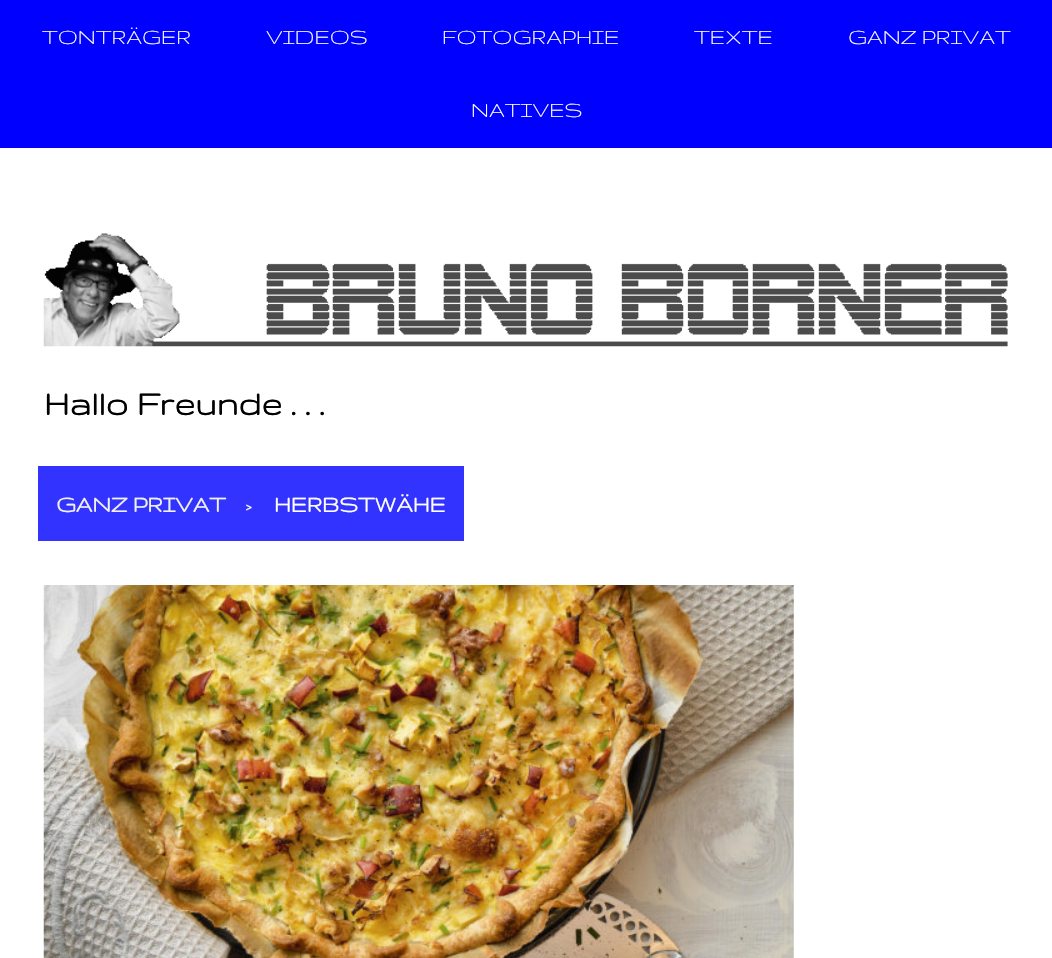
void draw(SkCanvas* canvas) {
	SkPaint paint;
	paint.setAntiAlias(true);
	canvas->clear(0xffffffff);
	paint.setColor(0xff0000ff);
	canvas->drawRect(SkRect::MakeXYWH(0, 0, 1052, 148), paint);
	SkFont f1(fontMgr->matchFamilyStyle("Gruppo", SkFontStyle::Normal()), 24);
	f1.setSubpixel(true);
	paint.setColor(0xffffffff);
	canvas->drawString("TONTRÄGER", 42, 44, f1, paint);
	canvas->drawString("VIDEOS", 266, 44, f1, paint);
	canvas->drawString("FOTOGRAPHIE", 442, 44, f1, paint);
	canvas->drawString("TEXTE", 694, 44, f1, paint);
	canvas->drawString("GANZ PRIVAT", 848, 44, f1, paint);
	canvas->drawString("NATIVES", 471, 117, f1, paint);
	canvas->drawImageRect(SkImages::DeferredFromEncodedData(SkData::MakeFromFileName("img1.png")), SkRect::MakeXYWH(43, 233, 965, 114), SkSamplingOptions());
	SkFont f2(fontMgr->matchFamilyStyle("Gruppo", SkFontStyle::Bold()), 37.5);
	f2.setSubpixel(true);
	paint.setColor(0xff000000);
	canvas->drawString("Hallo Freunde . . .", 44, 415, f2, paint);
	paint.setColor(0xff3333ff);
	canvas->drawRect(SkRect::MakeXYWH(38, 466, 426, 75), paint);
	SkFont f3(fontMgr->matchFamilyStyle("Gruppo", SkFontStyle::Bold()), 25);
	f3.setSubpixel(true);
	paint.setColor(0xfff1f1f1);
	canvas->drawString("GANZ PRIVAT", 56, 512, f3, paint);
	SkFont f4(fontMgr->matchFamilyStyle("Gruppo", SkFontStyle::Bold()), 18);
	f4.setSubpixel(true);
	canvas->drawString(">", 245, 512, f4, paint);
	paint.setColor(0xffffffff);
	canvas->drawString("HERBSTWÄHE", 274, 512, f3, paint);
	canvas->drawImageRect(SkImages::DeferredFromEncodedData(SkData::MakeFromFileName("img2.png")), SkRect::MakeXYWH(43, 585, 751, 373), SkSamplingOptions());
}
